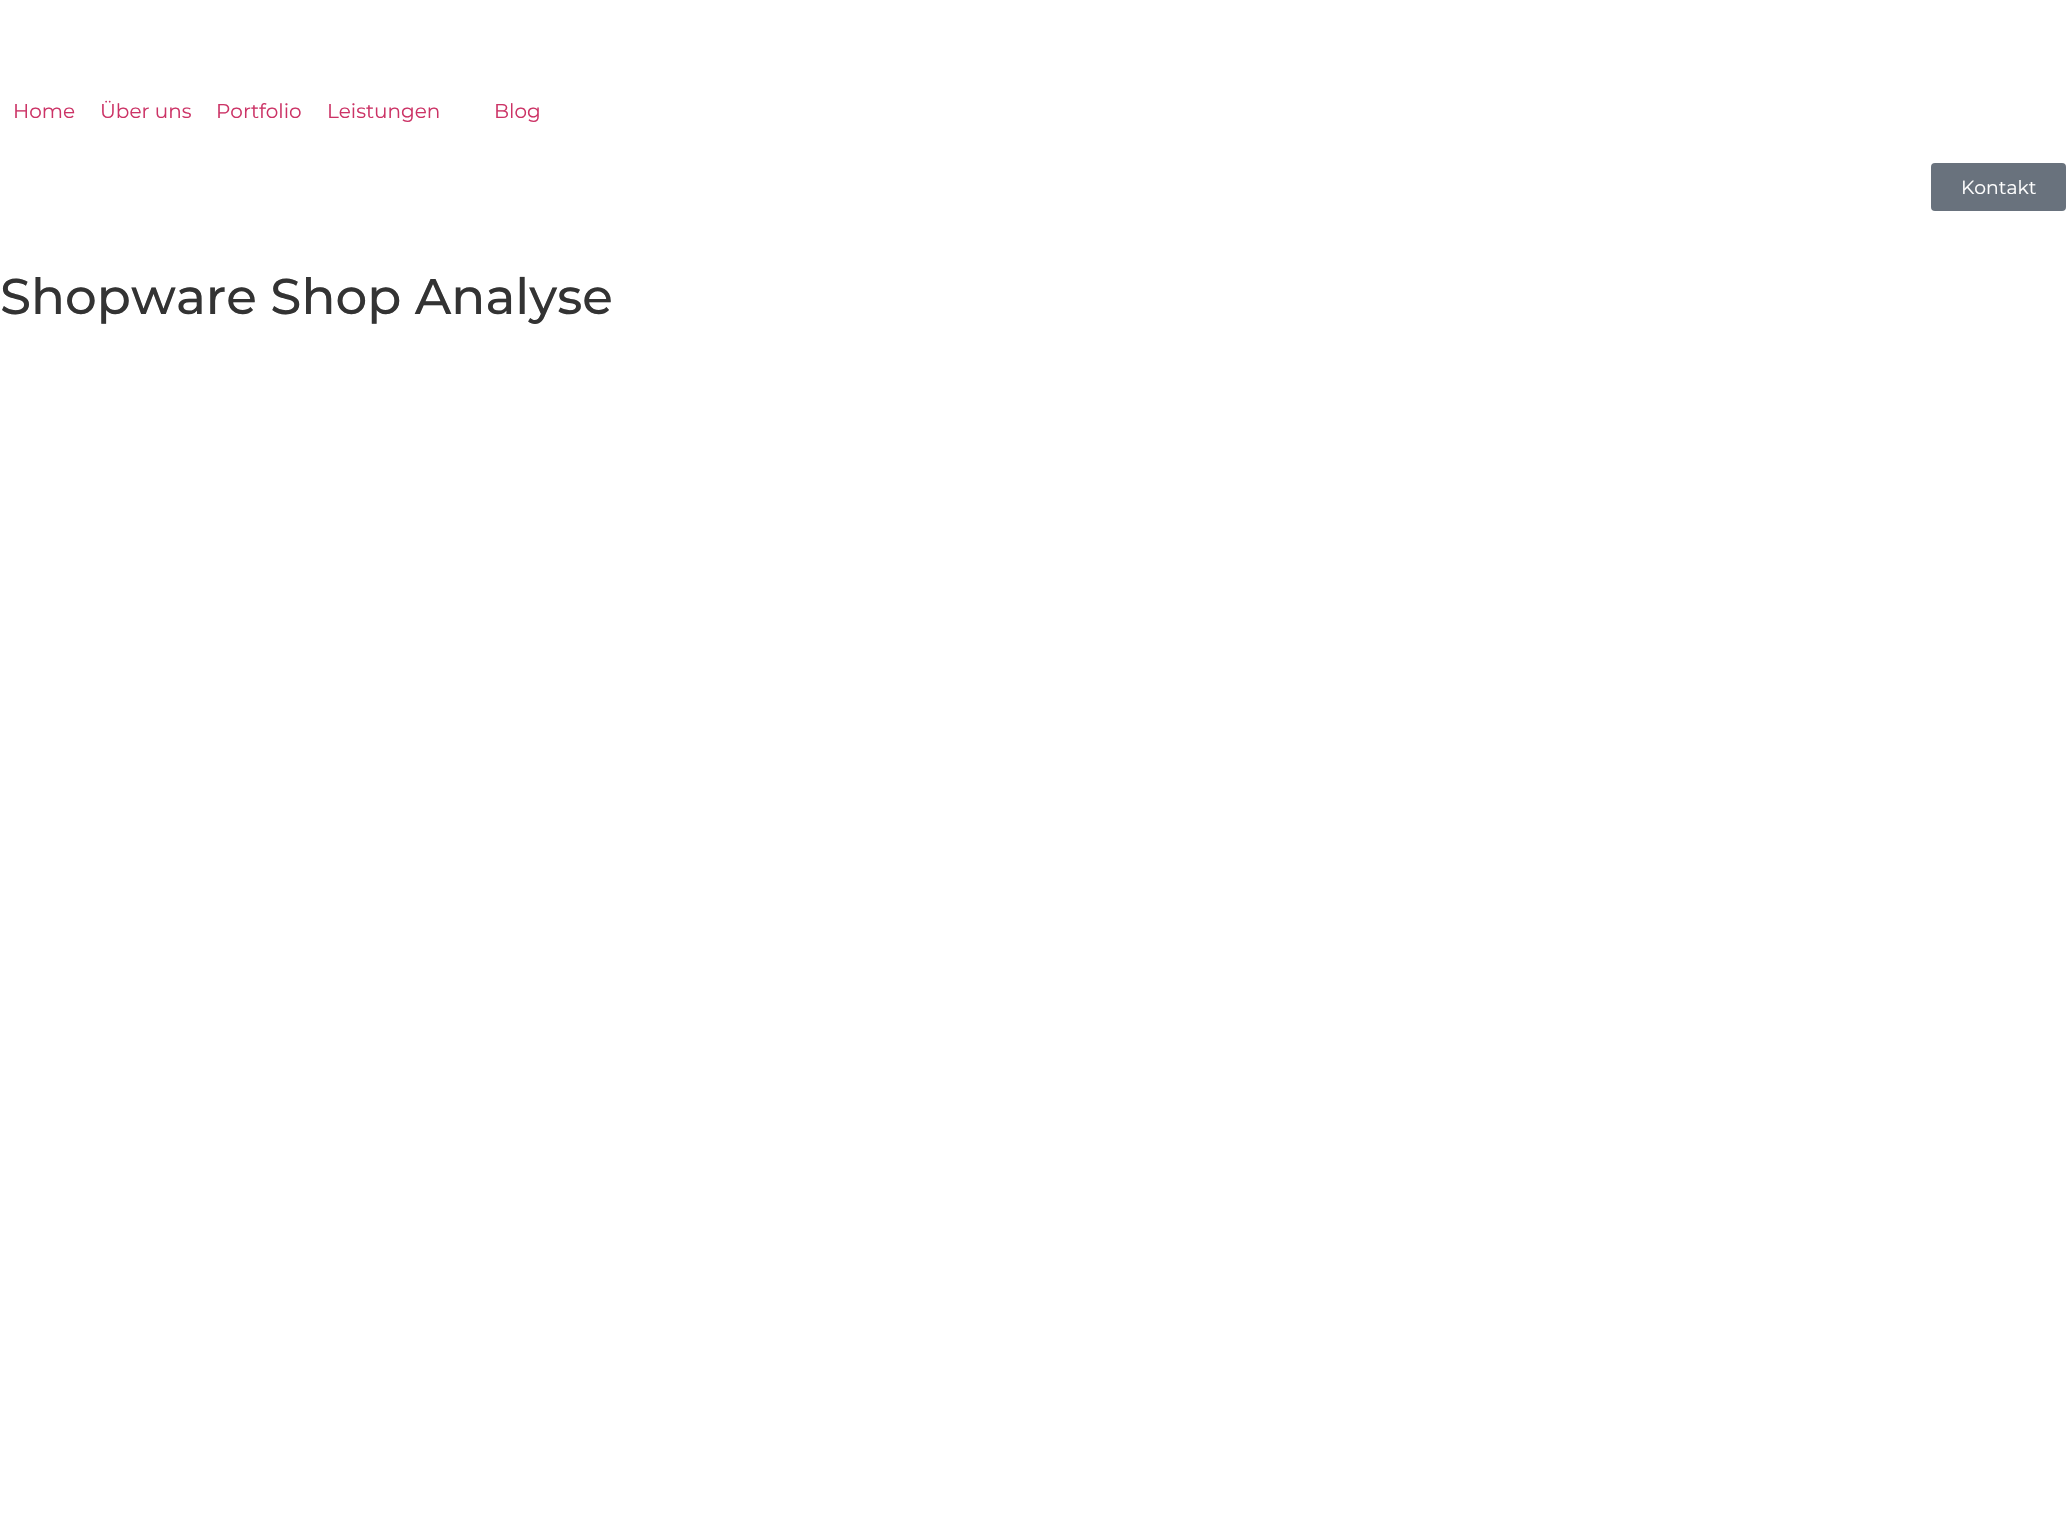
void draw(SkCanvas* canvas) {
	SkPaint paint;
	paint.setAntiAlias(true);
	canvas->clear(0xffffffff);
	SkFont f1(fontMgr->matchFamilyStyle("Montserrat", SkFontStyle::Normal()), 20);
	f1.setSubpixel(true);
	paint.setColor(0xffcc3366);
	canvas->drawString("Home", 13, 118, f1, paint);
	canvas->drawString("Über uns", 100, 118, f1, paint);
	canvas->drawString("Portfolio", 216, 118, f1, paint);
	canvas->drawString("Leistungen", 327, 118, f1, paint);
	canvas->drawString("Blog", 494, 118, f1, paint);
	paint.setColor(0xff69727d);
	canvas->drawRoundRect(SkRect::MakeXYWH(1931, 163, 135, 48), 4, 4, paint);
	SkFont f2(fontMgr->matchFamilyStyle("Montserrat", SkFontStyle::Normal()), 18.75);
	f2.setSubpixel(true);
	paint.setColor(0xffffffff);
	canvas->drawString("Kontakt", 1961, 194, f2, paint);
	SkFont f3(fontMgr->matchFamilyStyle("Montserrat", SkFontStyle(500, SkFontStyle::kNormal_Width, SkFontStyle::kUpright_Slant)), 50);
	f3.setSubpixel(true);
	paint.setColor(0xff333333);
	canvas->drawString("Shopware Shop Analyse", 0, 314, f3, paint);
}
